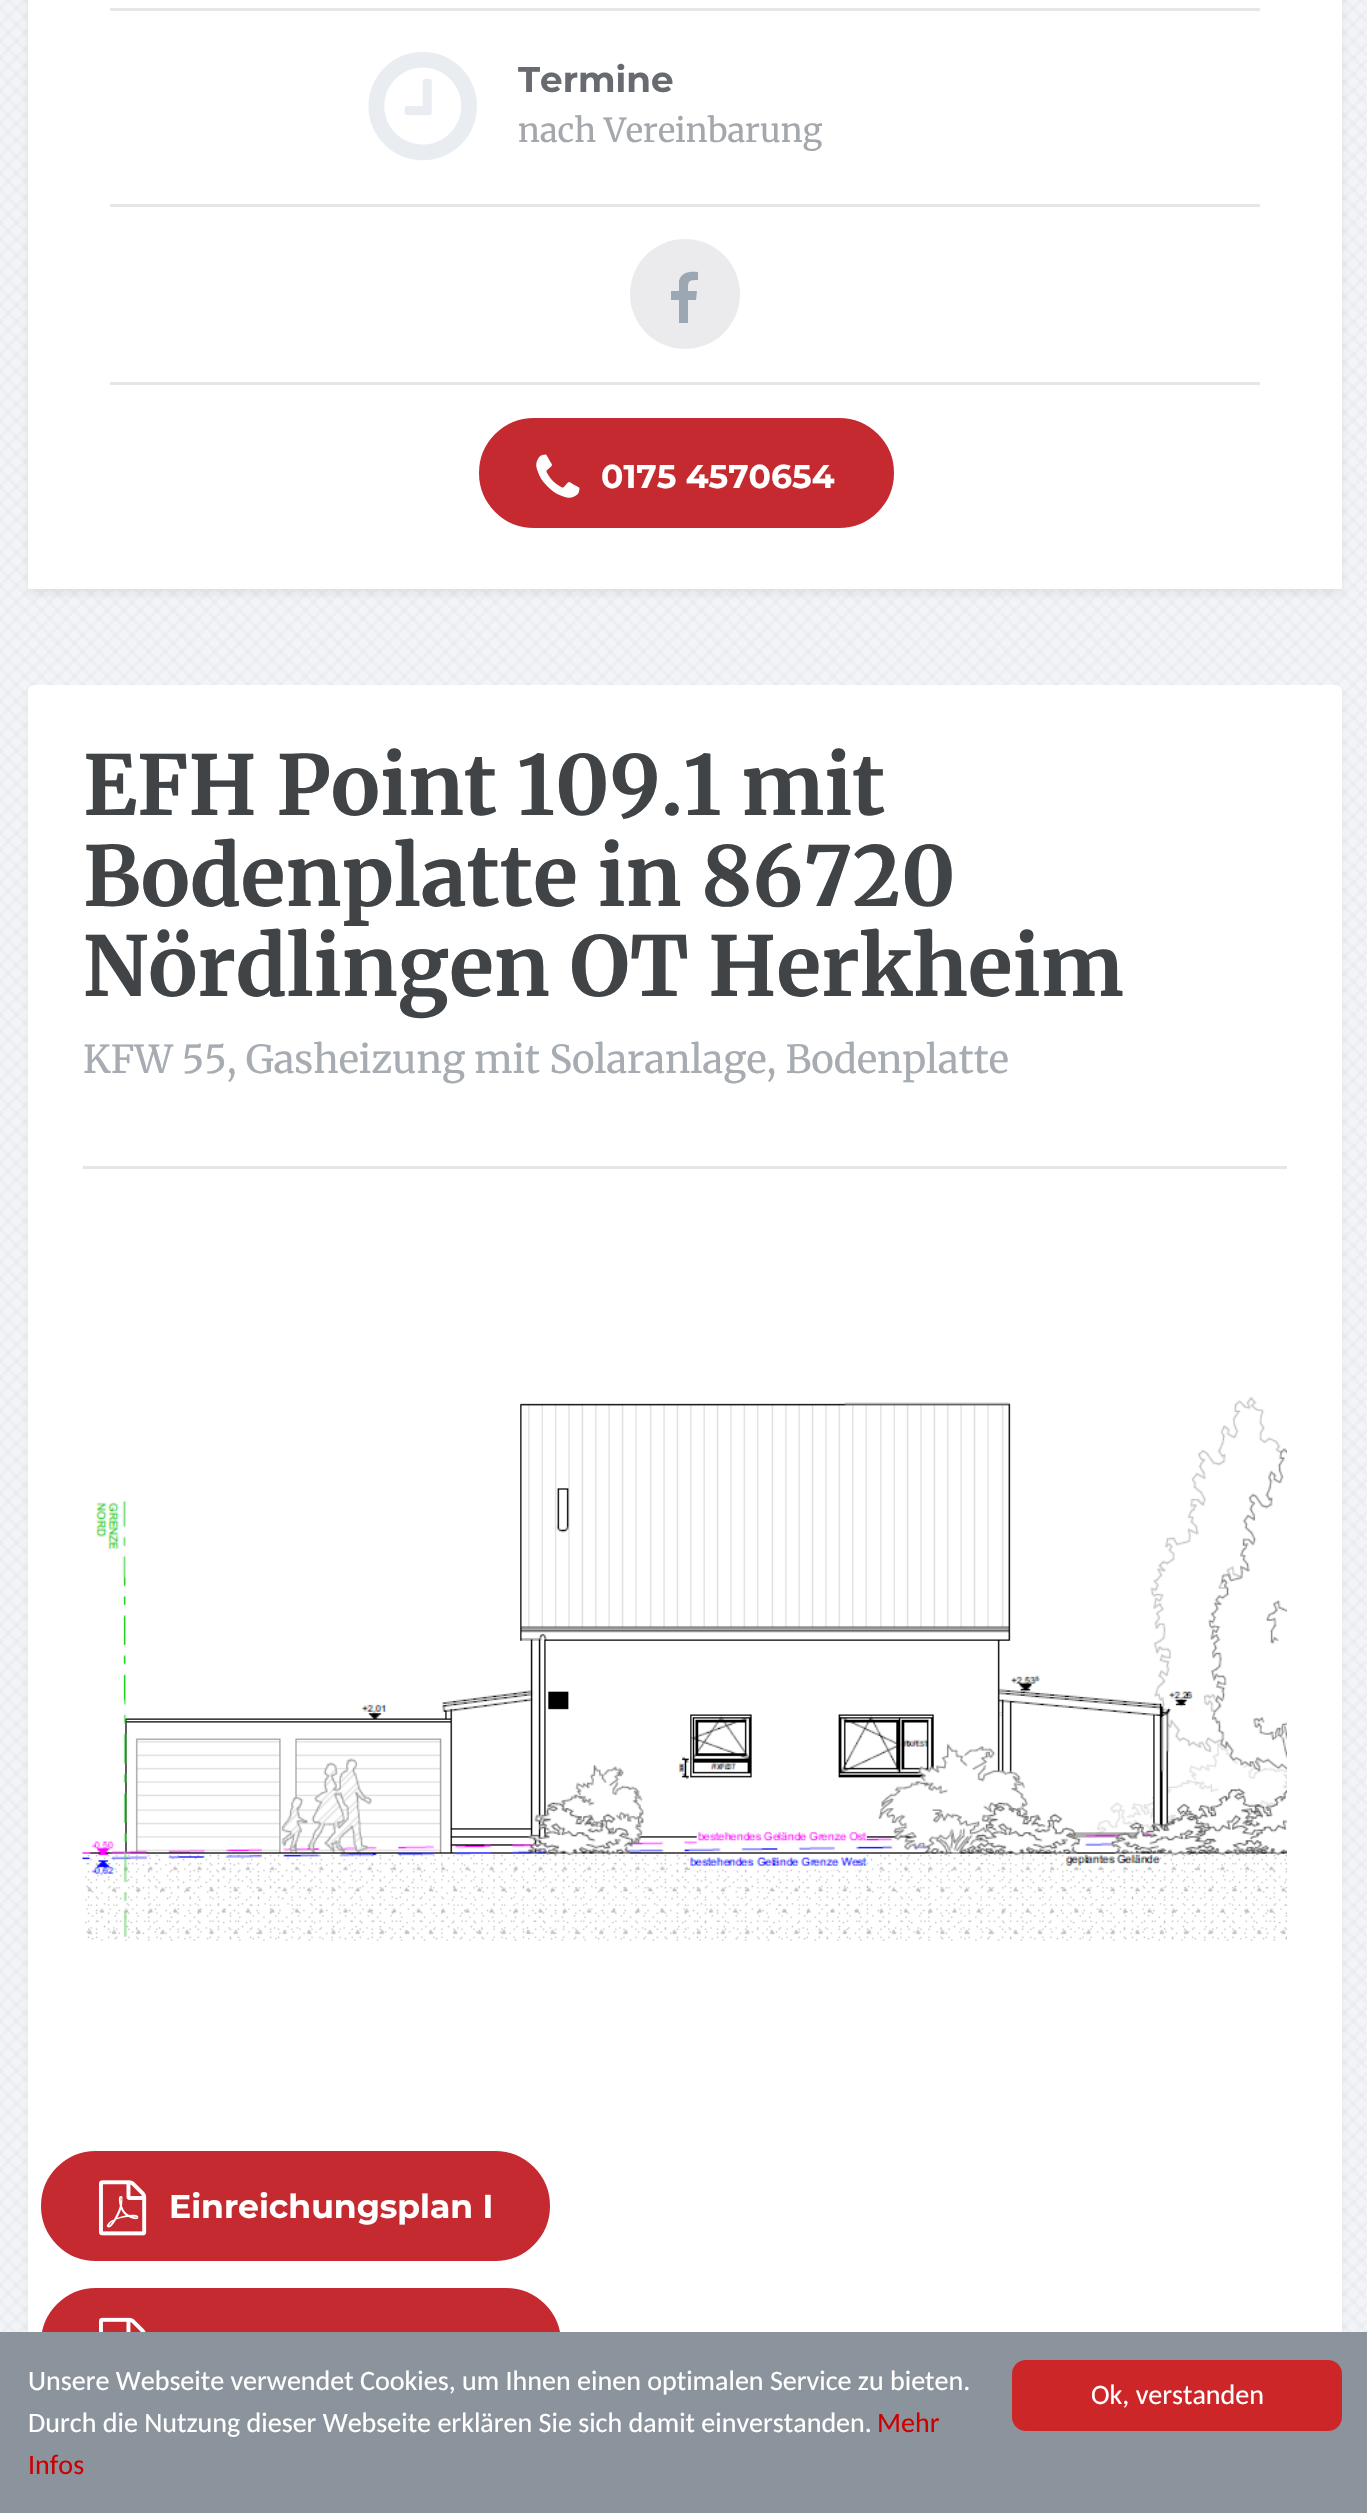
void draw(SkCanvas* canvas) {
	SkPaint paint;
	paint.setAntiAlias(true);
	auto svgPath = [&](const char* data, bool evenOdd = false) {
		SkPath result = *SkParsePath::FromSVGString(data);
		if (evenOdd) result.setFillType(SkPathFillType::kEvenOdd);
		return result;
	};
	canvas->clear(0xfff2f4f7);
	canvas->drawImageRect(SkImages::DeferredFromEncodedData(SkData::MakeFromFileName("img1.png")), SkRect::MakeXYWH(0, 0, 1367, 2332), SkSamplingOptions());
	paint.setColor(0x141f1f1f);
	paint.setMaskFilter(SkMaskFilter::MakeBlur(kNormal_SkBlurStyle, 4));
	canvas->drawRect(SkRect::MakeXYWH(28, -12, 1314, 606), paint);
	paint.setMaskFilter(nullptr);
	paint.setColor(0xffffffff);
	canvas->drawRect(SkRect::MakeXYWH(28, 0, 1314, 589), paint);
	paint.setColor(0xffe6e6e6);
	canvas->drawRect(SkRect::MakeXYWH(110, 8, 1150, 3), paint);
	canvas->drawImageRect(SkImages::DeferredFromEncodedData(SkData::MakeFromFileName("img2.png")), SkRect::MakeXYWH(368, 52, 109, 109), SkSamplingOptions());
	SkFont f1(fontMgr->matchFamilyStyle("Montserrat", SkFontStyle::Bold()), 35.75);
	f1.setSubpixel(true);
	paint.setColor(0xff676b6f);
	canvas->drawString("Termine", 518, 92, f1, paint);
	SkFont f2(fontMgr->matchFamilyStyle("Merriweather", SkFontStyle::Normal()), 33);
	f2.setSubpixel(true);
	paint.setColor(0xffa4a8ac);
	canvas->drawString("nach Vereinbarung", 518, 142, f2, paint);
	paint.setColor(0xffe6e6e6);
	canvas->drawRect(SkRect::MakeXYWH(110, 204, 1150, 3), paint);
	paint.setColor(0xffebebed);
	canvas->drawCircle(685, 294, 55, paint);
	paint.setColor(0xff9ba7b2);
	canvas->drawPath(svgPath("M698 272V280C688 280 688 281 688 291H697L696 300H688V323H679V300H671V291H679V281C681 272 690 271 698 272Z"), paint);
	paint.setColor(0xffe6e6e6);
	canvas->drawRect(SkRect::MakeXYWH(110, 382, 1150, 3), paint);
	paint.setColor(0xffc42a2f);
	canvas->drawRoundRect(SkRect::MakeXYWH(480.5, 419.5, 412, 107), 53.5, 53.5, paint);
	paint.setStroke(true);
	paint.setStrokeWidth(3);
	canvas->drawRoundRect(SkRect::MakeXYWH(480.5, 419.5, 412, 107), 53.5, 53.5, paint);
	canvas->drawImageRect(SkImages::DeferredFromEncodedData(SkData::MakeFromFileName("img3.png")), SkRect::MakeXYWH(536, 454, 44, 44), SkSamplingOptions());
	SkFont f3(fontMgr->matchFamilyStyle("Montserrat", SkFontStyle::Bold()), 33);
	f3.setSubpixel(true);
	paint.setStroke(false);
	paint.setColor(0xffffffff);
	canvas->drawString("0175 4570654", 601, 488, f3, paint);
	paint.setColor(0x0d1f1f1f);
	paint.setMaskFilter(SkMaskFilter::MakeBlur(kNormal_SkBlurStyle, 4));
	canvas->drawRoundRect(SkRect::MakeXYWH(28, 690, 1314, 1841), 6, 6, paint);
	paint.setMaskFilter(nullptr);
	paint.setColor(0xffffffff);
	canvas->drawRoundRect(SkRect::MakeXYWH(28, 685, 1314, 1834), 6, 6, paint);
	paint.setColor(0xffe6e6e6);
	canvas->drawRect(SkRect::MakeXYWH(83, 1166, 1204, 3), paint);
	SkFont f4(fontMgr->matchFamilyStyle("Merriweather", SkFontStyle::Bold()), 82.5);
	f4.setSubpixel(true);
	paint.setColor(0xff414447);
	canvas->drawString("EFH Point 109.1 mit", 83, 815, f4, paint);
	canvas->drawString("Bodenplatte in 86720", 83, 906, f4, paint);
	canvas->drawString("Nördlingen OT Herkheim", 83, 996, f4, paint);
	SkFont f5(fontMgr->matchFamilyStyle("Merriweather", SkFontStyle::Normal()), 38.5);
	f5.setSubpixel(true);
	paint.setColor(0xffa6acb2);
	canvas->drawString("KFW 55, Gasheizung mit Solaranlage, Bodenplatte", 83, 1073, f5, paint);
	canvas->drawImageRect(SkImages::DeferredFromEncodedData(SkData::MakeFromFileName("img4.png")), SkRect::MakeXYWH(82, 1397, 1205, 544), SkSamplingOptions());
	paint.setColor(0xffc42a2f);
	canvas->drawRoundRect(SkRect::MakeXYWH(42.5, 2152.5, 506, 107), 53.5, 53.5, paint);
	paint.setStroke(true);
	canvas->drawRoundRect(SkRect::MakeXYWH(42.5, 2152.5, 506, 107), 53.5, 53.5, paint);
	canvas->drawImageRect(SkImages::DeferredFromEncodedData(SkData::MakeFromFileName("img5.png")), SkRect::MakeXYWH(99, 2180, 48, 56), SkSamplingOptions());
	paint.setStroke(false);
	paint.setColor(0xffffffff);
	canvas->drawString("Einreichungsplan I", 169, 2218, f3, paint);
	paint.setColor(0xffc42a2f);
	canvas->drawRoundRect(SkRect::MakeXYWH(42.5, 2289.5, 517, 107), 53.5, 53.5, paint);
	paint.setStroke(true);
	canvas->drawRoundRect(SkRect::MakeXYWH(42.5, 2289.5, 517, 107), 53.5, 53.5, paint);
	canvas->drawImageRect(SkImages::DeferredFromEncodedData(SkData::MakeFromFileName("img6.png")), SkRect::MakeXYWH(99, 2317, 47, 15), SkSamplingOptions());
	paint.setStroke(false);
	paint.setColor(0xff8b949c);
	canvas->drawRect(SkRect::MakeXYWH(0, 2332, 1367, 181), paint);
	SkFont f6(fontMgr->matchFamilyStyle("Carlito", SkFontStyle::Normal()), 28.05);
	f6.setSubpixel(true);
	paint.setColor(0xffffffff);
	canvas->drawString("Unsere Webseite verwendet Cookies, um Ihnen einen optimalen Service zu bieten.", 28, 2390, f6, paint);
	canvas->drawString("Durch die Nutzung dieser Webseite erklären Sie sich damit einverstanden.", 28, 2432, f6, paint);
	paint.setColor(0xffcc0000);
	canvas->drawString("Mehr", 877, 2432, f6, paint);
	canvas->drawString("Infos", 28, 2474, f6, paint);
	paint.setColor(0xffcd2628);
	canvas->drawRoundRect(SkRect::MakeXYWH(1012, 2360, 330, 71), 14, 14, paint);
	paint.setColor(0xffffffff);
	canvas->drawString("Ok, verstanden", 1091, 2404, f6, paint);
}
